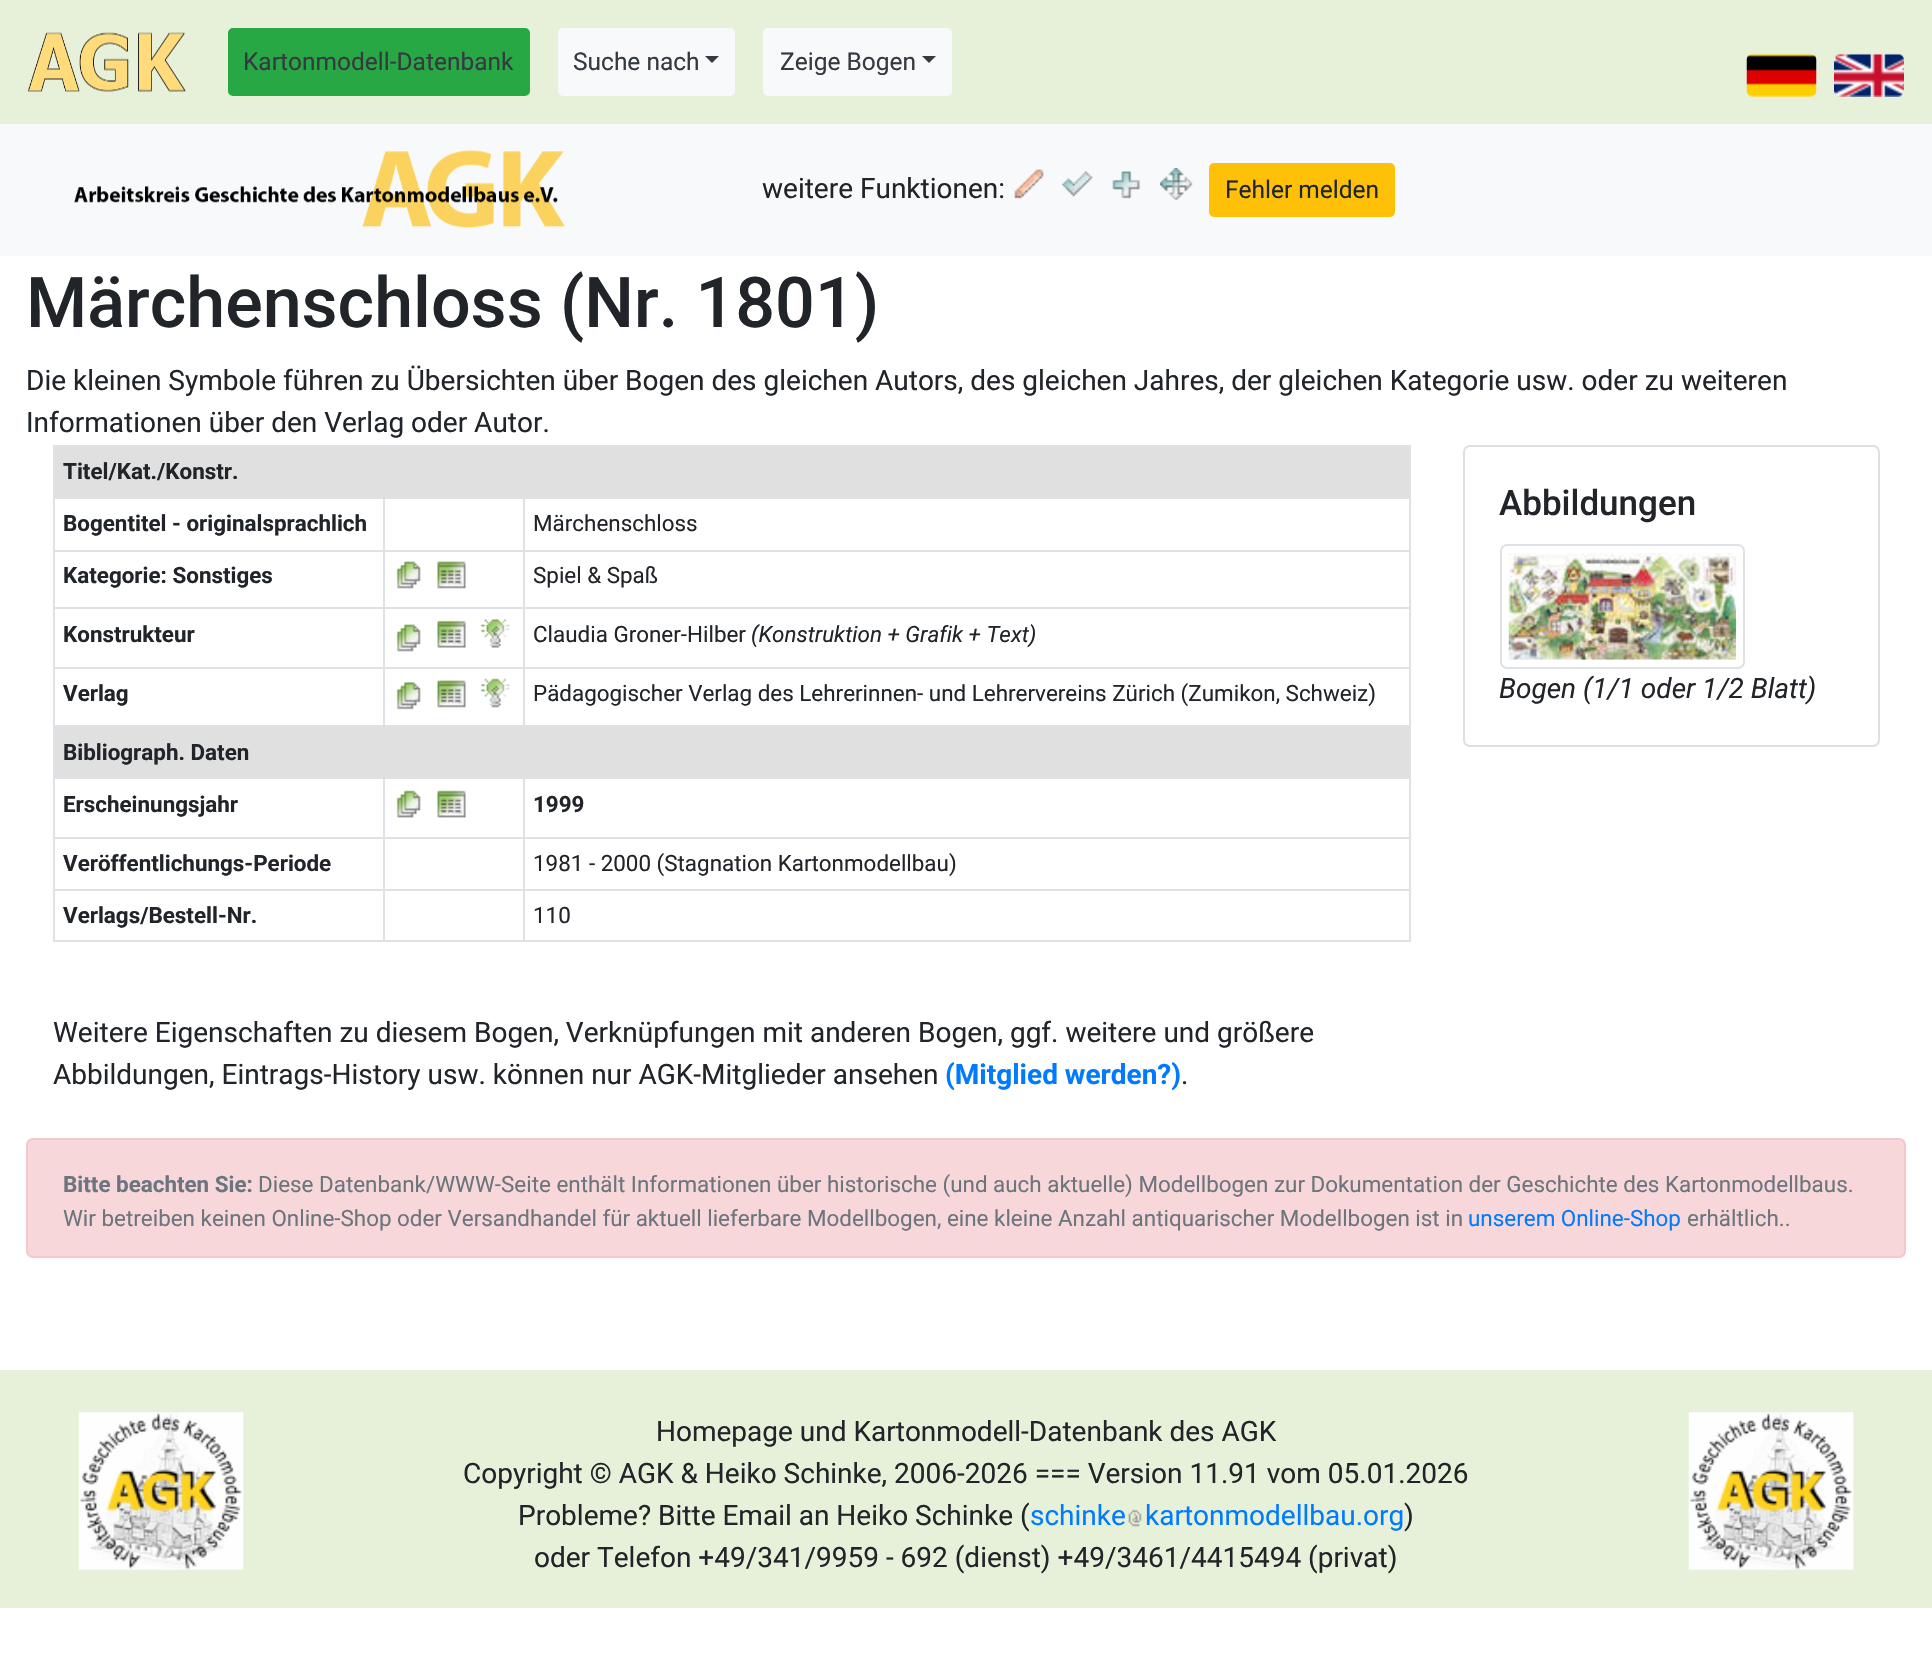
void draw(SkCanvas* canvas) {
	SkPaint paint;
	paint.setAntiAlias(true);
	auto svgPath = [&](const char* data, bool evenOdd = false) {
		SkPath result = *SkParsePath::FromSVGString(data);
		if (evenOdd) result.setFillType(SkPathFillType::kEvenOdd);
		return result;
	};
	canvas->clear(0xffffffff);
	paint.setColor(0xffe7f1da);
	canvas->drawRect(SkRect::MakeXYWH(0, 0, 1932, 124), paint);
	canvas->drawImageRect(SkImages::DeferredFromEncodedData(SkData::MakeFromFileName("img1.png")), SkRect::MakeXYWH(28, 32, 158, 60), SkSamplingOptions());
	paint.setColor(0xff28a745);
	canvas->drawRoundRect(SkRect::MakeXYWH(229, 29, 300, 66), 4, 4, paint);
	paint.setStroke(true);
	paint.setStrokeWidth(2);
	canvas->drawRoundRect(SkRect::MakeXYWH(229, 29, 300, 66), 4, 4, paint);
	SkFont f1(fontMgr->matchFamilyStyle("Roboto", SkFontStyle::Normal()), 24.5);
	f1.setSubpixel(true);
	paint.setStroke(false);
	paint.setColor(0xff343a40);
	canvas->drawString("Kartonmodell-Datenbank", 243, 70, f1, paint);
	paint.setColor(0xfff8f9fa);
	canvas->drawRoundRect(SkRect::MakeXYWH(559, 29, 175, 66), 4, 4, paint);
	paint.setStroke(true);
	canvas->drawRoundRect(SkRect::MakeXYWH(559, 29, 175, 66), 4, 4, paint);
	paint.setStroke(false);
	paint.setColor(0xff343a40);
	canvas->drawString("Suche nach", 573, 70, f1, paint);
	canvas->drawPath(svgPath("M705 56H719L712 63Z"), paint);
	paint.setColor(0xfff8f9fa);
	canvas->drawRoundRect(SkRect::MakeXYWH(764, 29, 187, 66), 4, 4, paint);
	paint.setStroke(true);
	canvas->drawRoundRect(SkRect::MakeXYWH(764, 29, 187, 66), 4, 4, paint);
	paint.setStroke(false);
	paint.setColor(0xff343a40);
	canvas->drawString("Zeige Bogen", 780, 70, f1, paint);
	canvas->drawPath(svgPath("M922 56H936L929 63Z"), paint);
	canvas->drawImageRect(SkImages::DeferredFromEncodedData(SkData::MakeFromFileName("img2.png")), SkRect::MakeXYWH(1746, 53, 71, 44), SkSamplingOptions());
	canvas->drawImageRect(SkImages::DeferredFromEncodedData(SkData::MakeFromFileName("img3.png")), SkRect::MakeXYWH(1834, 53, 70, 44), SkSamplingOptions());
	paint.setColor(0xfff8f9fa);
	canvas->drawRect(SkRect::MakeXYWH(0, 124, 1932, 132), paint);
	canvas->drawImageRect(SkImages::DeferredFromEncodedData(SkData::MakeFromFileName("img4.png")), SkRect::MakeXYWH(74, 150, 491, 79), SkSamplingOptions());
	SkFont f2(fontMgr->matchFamilyStyle("Roboto", SkFontStyle::Normal()), 28);
	f2.setSubpixel(true);
	paint.setColor(0xff212529);
	canvas->drawString("weitere Funktionen:", 762, 198, f2, paint);
	canvas->drawImageRect(SkImages::DeferredFromEncodedData(SkData::MakeFromFileName("img5.png")), SkRect::MakeXYWH(1014, 169, 30, 30), SkSamplingOptions());
	canvas->drawImageRect(SkImages::DeferredFromEncodedData(SkData::MakeFromFileName("img6.png")), SkRect::MakeXYWH(1062, 171, 31, 26), SkSamplingOptions());
	canvas->drawImageRect(SkImages::DeferredFromEncodedData(SkData::MakeFromFileName("img7.png")), SkRect::MakeXYWH(1112, 171, 29, 28), SkSamplingOptions());
	canvas->drawImageRect(SkImages::DeferredFromEncodedData(SkData::MakeFromFileName("img8.png")), SkRect::MakeXYWH(1160, 168, 33, 32), SkSamplingOptions());
	paint.setColor(0xffffc107);
	canvas->drawRoundRect(SkRect::MakeXYWH(1210, 164, 184, 52), 4, 4, paint);
	paint.setStroke(true);
	canvas->drawRoundRect(SkRect::MakeXYWH(1210, 164, 184, 52), 4, 4, paint);
	paint.setStroke(false);
	paint.setColor(0xff212529);
	canvas->drawString("Fehler melden", 1225, 198, f1, paint);
	SkFont f3(fontMgr->matchFamilyStyle("Roboto", SkFontStyle(500, SkFontStyle::kNormal_Width, SkFontStyle::kUpright_Slant)), 70);
	f3.setSubpixel(true);
	canvas->drawString("Märchenschloss (Nr. 1801)", 26, 327, f3, paint);
	canvas->drawString("Die kleinen Symbole führen zu Übersichten über Bogen des gleichen Autors, des gleichen Jahres, der gleichen Kategorie usw. oder zu weiteren", 26, 390, f2, paint);
	canvas->drawString("Informationen über den Verlag oder Autor.", 26, 432, f2, paint);
	paint.setColor(0xffdee2e6);
	canvas->drawRect(SkRect::MakeXYWH(53, 445, 1358, 2), paint);
	canvas->drawRect(SkRect::MakeXYWH(1409, 445, 2, 497), paint);
	canvas->drawRect(SkRect::MakeXYWH(53, 940, 1358, 2), paint);
	canvas->drawRect(SkRect::MakeXYWH(53, 445, 2, 497), paint);
	paint.setColor(0xffe0e0e0);
	canvas->drawRect(SkRect::MakeXYWH(55, 447, 1354, 50), paint);
	SkFont f4(fontMgr->matchFamilyStyle("Roboto", SkFontStyle::Bold()), 22.4);
	f4.setSubpixel(true);
	paint.setColor(0xff212529);
	canvas->drawString("Titel/Kat./Konstr.", 63, 479, f4, paint);
	paint.setColor(0xffdee2e6);
	canvas->drawRect(SkRect::MakeXYWH(523, 497, 888, 2), paint);
	canvas->drawRect(SkRect::MakeXYWH(523, 550, 888, 2), paint);
	canvas->drawRect(SkRect::MakeXYWH(523, 607, 888, 2), paint);
	canvas->drawRect(SkRect::MakeXYWH(523, 667, 888, 2), paint);
	canvas->drawRect(SkRect::MakeXYWH(53, 725, 1358, 2), paint);
	canvas->drawRect(SkRect::MakeXYWH(523, 667, 2, 59), paint);
	canvas->drawRect(SkRect::MakeXYWH(383, 667, 142, 2), paint);
	canvas->drawRect(SkRect::MakeXYWH(523, 607, 2, 62), paint);
	canvas->drawRect(SkRect::MakeXYWH(383, 607, 142, 2), paint);
	canvas->drawRect(SkRect::MakeXYWH(523, 550, 2, 59), paint);
	canvas->drawRect(SkRect::MakeXYWH(383, 550, 142, 2), paint);
	canvas->drawRect(SkRect::MakeXYWH(523, 497, 2, 54), paint);
	canvas->drawRect(SkRect::MakeXYWH(383, 497, 142, 2), paint);
	canvas->drawRect(SkRect::MakeXYWH(383, 667, 2, 59), paint);
	canvas->drawRect(SkRect::MakeXYWH(53, 667, 332, 2), paint);
	canvas->drawRect(SkRect::MakeXYWH(383, 607, 2, 62), paint);
	canvas->drawRect(SkRect::MakeXYWH(53, 607, 332, 2), paint);
	canvas->drawRect(SkRect::MakeXYWH(383, 550, 2, 59), paint);
	canvas->drawRect(SkRect::MakeXYWH(53, 550, 332, 2), paint);
	canvas->drawRect(SkRect::MakeXYWH(383, 497, 2, 54), paint);
	canvas->drawRect(SkRect::MakeXYWH(53, 497, 332, 2), paint);
	paint.setColor(0xff212529);
	canvas->drawString("Bogentitel - originalsprachlich", 63, 531, f4, paint);
	SkFont f5(fontMgr->matchFamilyStyle("Roboto", SkFontStyle::Normal()), 22.4);
	f5.setSubpixel(true);
	canvas->drawString("Märchenschloss", 533, 531, f5, paint);
	canvas->drawString("Kategorie: Sonstiges", 63, 583, f4, paint);
	canvas->drawImageRect(SkImages::DeferredFromEncodedData(SkData::MakeFromFileName("img9.png")), SkRect::MakeXYWH(396, 561, 25, 28), SkSamplingOptions());
	canvas->drawImageRect(SkImages::DeferredFromEncodedData(SkData::MakeFromFileName("img10.png")), SkRect::MakeXYWH(437, 561, 29, 28), SkSamplingOptions());
	canvas->drawString("Spiel & Spaß", 533, 583, f5, paint);
	canvas->drawString("Konstrukteur", 63, 642, f4, paint);
	canvas->drawImageRect(SkImages::DeferredFromEncodedData(SkData::MakeFromFileName("img9.png")), SkRect::MakeXYWH(396, 624, 25, 28), SkSamplingOptions());
	canvas->drawImageRect(SkImages::DeferredFromEncodedData(SkData::MakeFromFileName("img11.png")), SkRect::MakeXYWH(437, 620, 29, 28), SkSamplingOptions());
	canvas->drawImageRect(SkImages::DeferredFromEncodedData(SkData::MakeFromFileName("img12.png")), SkRect::MakeXYWH(480, 619, 30, 29), SkSamplingOptions());
	canvas->drawString("Claudia Groner-Hilber", 533, 642, f5, paint);
	SkFont f6(fontMgr->matchFamilyStyle("Roboto", SkFontStyle::Italic()), 22.4);
	f6.setSubpixel(true);
	canvas->drawString("(Konstruktion + Grafik + Text)", 751, 642, f6, paint);
	canvas->drawString("Verlag", 63, 701, f4, paint);
	canvas->drawImageRect(SkImages::DeferredFromEncodedData(SkData::MakeFromFileName("img13.png")), SkRect::MakeXYWH(396, 682, 25, 28), SkSamplingOptions());
	canvas->drawImageRect(SkImages::DeferredFromEncodedData(SkData::MakeFromFileName("img10.png")), SkRect::MakeXYWH(437, 680, 29, 28), SkSamplingOptions());
	canvas->drawImageRect(SkImages::DeferredFromEncodedData(SkData::MakeFromFileName("img14.png")), SkRect::MakeXYWH(480, 678, 30, 30), SkSamplingOptions());
	canvas->drawString("Pädagogischer Verlag des Lehrerinnen- und Lehrervereins Zürich (Zumikon, Schweiz)", 533, 701, f5, paint);
	paint.setColor(0xffe0e0e0);
	canvas->drawRect(SkRect::MakeXYWH(55, 727, 1354, 50), paint);
	paint.setColor(0xff212529);
	canvas->drawString("Bibliograph. Daten", 63, 760, f4, paint);
	paint.setColor(0xffdee2e6);
	canvas->drawRect(SkRect::MakeXYWH(523, 777, 888, 2), paint);
	canvas->drawRect(SkRect::MakeXYWH(523, 837, 888, 2), paint);
	canvas->drawRect(SkRect::MakeXYWH(523, 889, 888, 2), paint);
	canvas->drawRect(SkRect::MakeXYWH(523, 889, 2, 53), paint);
	canvas->drawRect(SkRect::MakeXYWH(383, 889, 142, 2), paint);
	canvas->drawRect(SkRect::MakeXYWH(523, 837, 2, 54), paint);
	canvas->drawRect(SkRect::MakeXYWH(383, 837, 142, 2), paint);
	canvas->drawRect(SkRect::MakeXYWH(523, 777, 2, 61), paint);
	canvas->drawRect(SkRect::MakeXYWH(383, 777, 142, 2), paint);
	canvas->drawRect(SkRect::MakeXYWH(383, 889, 2, 53), paint);
	canvas->drawRect(SkRect::MakeXYWH(53, 889, 332, 2), paint);
	canvas->drawRect(SkRect::MakeXYWH(383, 837, 2, 54), paint);
	canvas->drawRect(SkRect::MakeXYWH(53, 837, 332, 2), paint);
	canvas->drawRect(SkRect::MakeXYWH(383, 777, 2, 61), paint);
	canvas->drawRect(SkRect::MakeXYWH(53, 777, 332, 2), paint);
	paint.setColor(0xff212529);
	canvas->drawString("Erscheinungsjahr", 63, 812, f4, paint);
	canvas->drawImageRect(SkImages::DeferredFromEncodedData(SkData::MakeFromFileName("img15.png")), SkRect::MakeXYWH(396, 790, 25, 28), SkSamplingOptions());
	canvas->drawImageRect(SkImages::DeferredFromEncodedData(SkData::MakeFromFileName("img16.png")), SkRect::MakeXYWH(437, 790, 29, 28), SkSamplingOptions());
	canvas->drawString("1999", 533, 812, f4, paint);
	canvas->drawString("Veröffentlichungs-Periode", 63, 871, f4, paint);
	canvas->drawString("1981 - 2000 (Stagnation Kartonmodellbau)", 533, 871, f5, paint);
	canvas->drawString("Verlags/Bestell-Nr.", 63, 923, f4, paint);
	canvas->drawString("110", 533, 923, f5, paint);
	canvas->drawString("Weitere Eigenschaften zu diesem Bogen, Verknüpfungen mit anderen Bogen, ggf. weitere und größere", 53, 1042, f2, paint);
	canvas->drawString("Abbildungen, Eintrags-History usw. können nur AGK-Mitglieder ansehen", 53, 1084, f2, paint);
	SkFont f7(fontMgr->matchFamilyStyle("Roboto", SkFontStyle::Bold()), 28);
	f7.setSubpixel(true);
	paint.setColor(0xff007bff);
	canvas->drawString("(Mitglied werden?)", 945, 1084, f7, paint);
	paint.setColor(0xff212529);
	canvas->drawString(".", 1181, 1084, f2, paint);
	paint.setStroke(true);
	paint.setColor(0xffdfdfdf);
	canvas->drawRoundRect(SkRect::MakeXYWH(1464, 446, 415, 300), 6, 6, paint);
	SkFont f8(fontMgr->matchFamilyStyle("Roboto", SkFontStyle(500, SkFontStyle::kNormal_Width, SkFontStyle::kUpright_Slant)), 35);
	f8.setSubpixel(true);
	paint.setStroke(false);
	paint.setColor(0xff212529);
	canvas->drawString("Abbildungen", 1499, 515, f8, paint);
	paint.setStroke(true);
	paint.setColor(0xffdee2e6);
	canvas->drawRoundRect(SkRect::MakeXYWH(1501, 545, 243, 123), 6, 6, paint);
	canvas->drawImageRect(SkImages::DeferredFromEncodedData(SkData::MakeFromFileName("img17.png")), SkRect::MakeXYWH(1508, 553, 228, 107), SkSamplingOptions());
	SkFont f9(fontMgr->matchFamilyStyle("Roboto", SkFontStyle::Italic()), 28);
	f9.setSubpixel(true);
	paint.setStroke(false);
	paint.setColor(0xff212529);
	canvas->drawString("Bogen (1/1 oder 1/2 Blatt)", 1499, 698, f9, paint);
	paint.setColor(0xfff8d7da);
	canvas->drawRoundRect(SkRect::MakeXYWH(27, 1139, 1878, 118), 6, 6, paint);
	paint.setStroke(true);
	paint.setColor(0xfff5c6cb);
	canvas->drawRoundRect(SkRect::MakeXYWH(27, 1139, 1878, 118), 6, 6, paint);
	paint.setStroke(false);
	paint.setColor(0xff6c757d);
	canvas->drawString("Bitte beachten Sie:", 63, 1192, f4, paint);
	canvas->drawString("Diese Datenbank/WWW-Seite enthält Informationen über historische (und auch aktuelle) Modellbogen zur Dokumentation der Geschichte des Kartonmodellbaus.", 258, 1192, f5, paint);
	canvas->drawString("Wir betreiben keinen Online-Shop oder Versandhandel für aktuell lieferbare Modellbogen, eine kleine Anzahl antiquarischer Modellbogen ist in", 63, 1226, f5, paint);
	paint.setColor(0xff007bff);
	canvas->drawString("unserem Online-Shop", 1468, 1226, f5, paint);
	paint.setColor(0xff6c757d);
	canvas->drawString("erhältlich..", 1687, 1226, f5, paint);
	paint.setColor(0xffe7f1da);
	canvas->drawRect(SkRect::MakeXYWH(0, 1370, 1932, 238), paint);
	canvas->drawImageRect(SkImages::DeferredFromEncodedData(SkData::MakeFromFileName("img18.png")), SkRect::MakeXYWH(78, 1412, 166, 158), SkSamplingOptions());
	paint.setColor(0xff212529);
	canvas->drawString("Homepage und Kartonmodell-Datenbank des AGK", 656, 1441, f2, paint);
	canvas->drawString("Copyright © AGK & Heiko Schinke, 2006-2026 === Version 11.91 vom 05.01.2026", 463, 1483, f2, paint);
	canvas->drawString("Probleme? Bitte Email an Heiko Schinke (", 518, 1525, f2, paint);
	paint.setColor(0xff007bff);
	canvas->drawString("schinke", 1030, 1525, f2, paint);
	canvas->drawImageRect(SkImages::DeferredFromEncodedData(SkData::MakeFromFileName("img19.png")), SkRect::MakeXYWH(1128, 1509, 14, 18), SkSamplingOptions());
	canvas->drawString("kartonmodellbau.org", 1145, 1525, f2, paint);
	paint.setColor(0xff212529);
	canvas->drawString(")", 1404, 1525, f2, paint);
	canvas->drawString("oder Telefon +49/341/9959 - 692 (dienst) +49/3461/4415494 (privat)", 534, 1567, f2, paint);
	canvas->drawImageRect(SkImages::DeferredFromEncodedData(SkData::MakeFromFileName("img20.png")), SkRect::MakeXYWH(1688, 1412, 166, 158), SkSamplingOptions());
}
